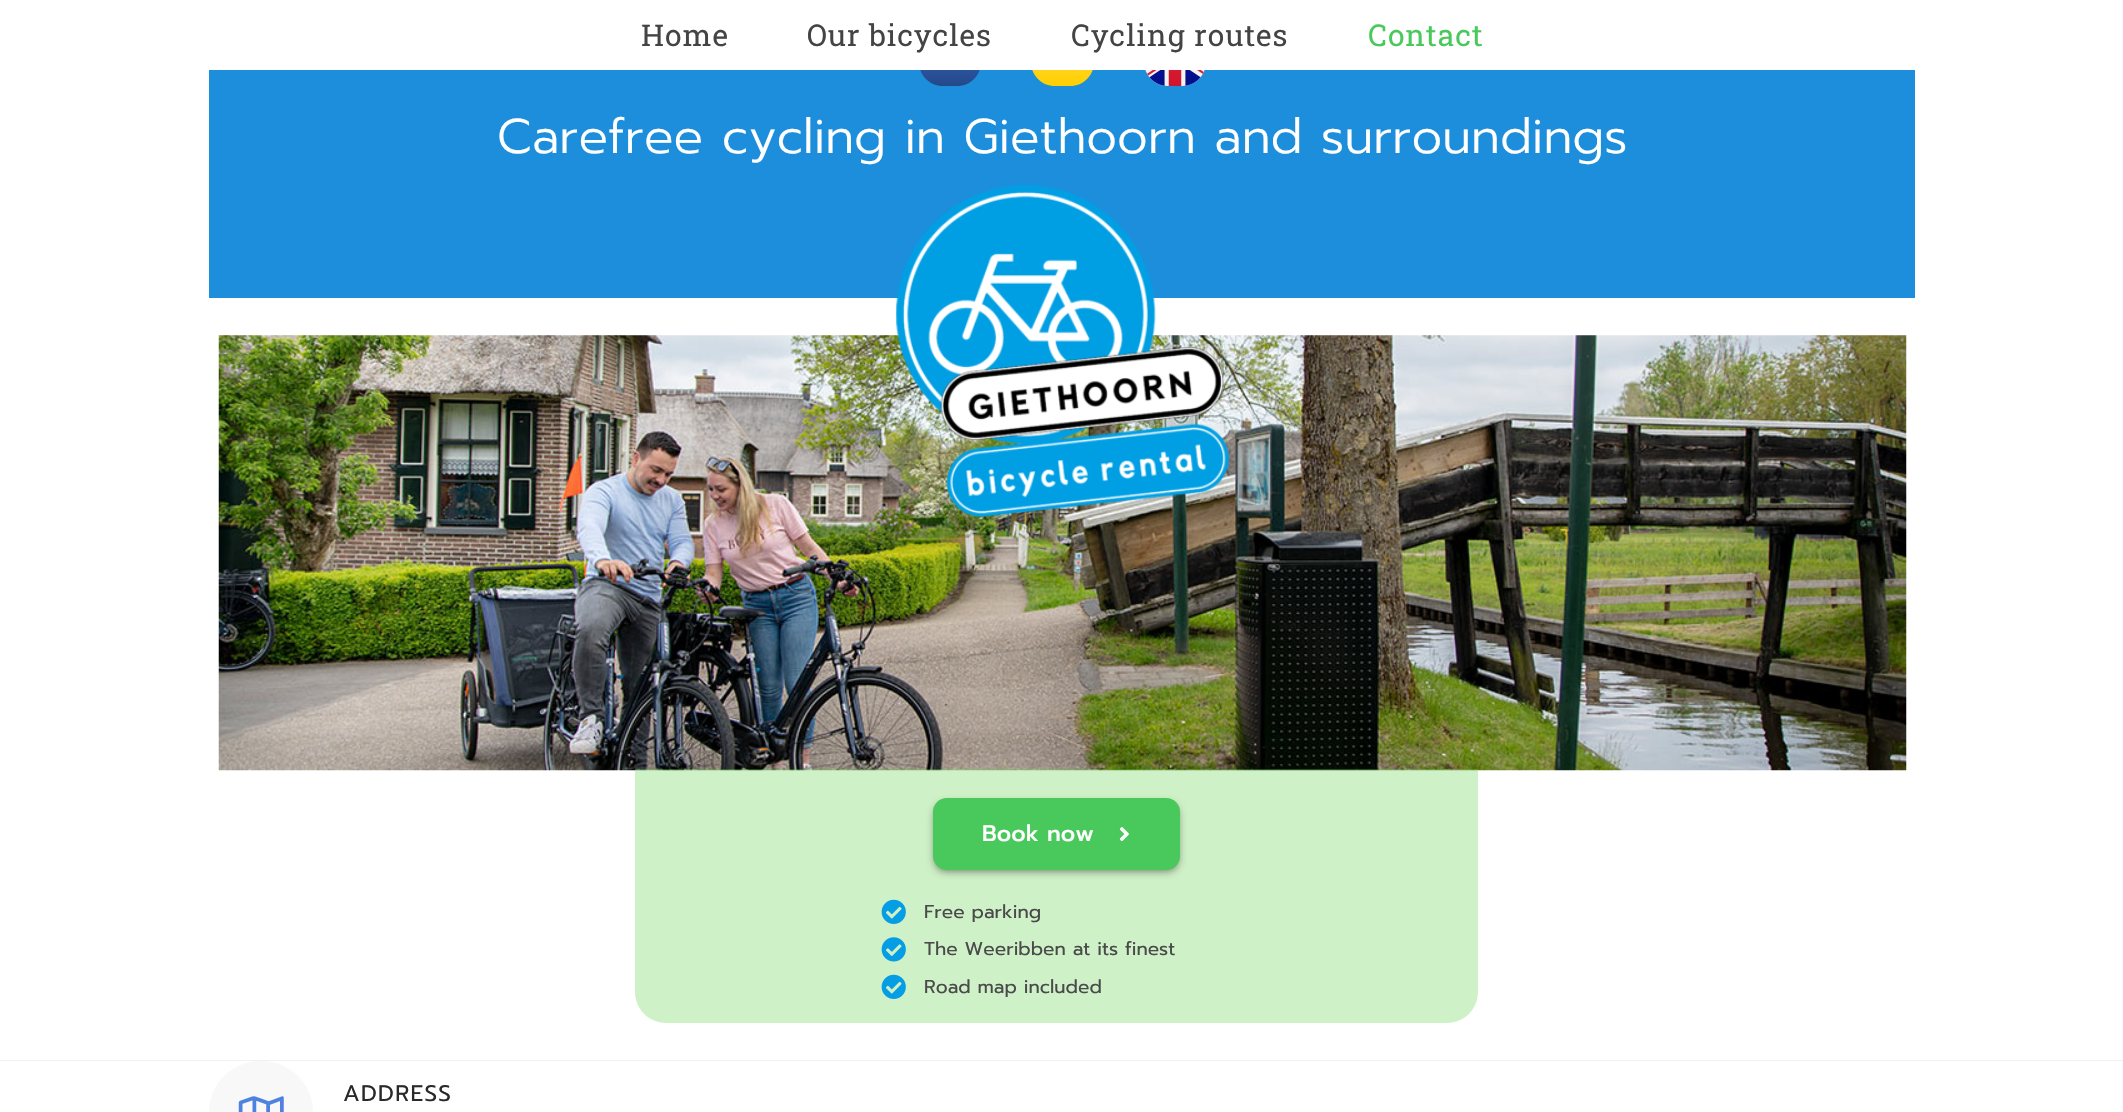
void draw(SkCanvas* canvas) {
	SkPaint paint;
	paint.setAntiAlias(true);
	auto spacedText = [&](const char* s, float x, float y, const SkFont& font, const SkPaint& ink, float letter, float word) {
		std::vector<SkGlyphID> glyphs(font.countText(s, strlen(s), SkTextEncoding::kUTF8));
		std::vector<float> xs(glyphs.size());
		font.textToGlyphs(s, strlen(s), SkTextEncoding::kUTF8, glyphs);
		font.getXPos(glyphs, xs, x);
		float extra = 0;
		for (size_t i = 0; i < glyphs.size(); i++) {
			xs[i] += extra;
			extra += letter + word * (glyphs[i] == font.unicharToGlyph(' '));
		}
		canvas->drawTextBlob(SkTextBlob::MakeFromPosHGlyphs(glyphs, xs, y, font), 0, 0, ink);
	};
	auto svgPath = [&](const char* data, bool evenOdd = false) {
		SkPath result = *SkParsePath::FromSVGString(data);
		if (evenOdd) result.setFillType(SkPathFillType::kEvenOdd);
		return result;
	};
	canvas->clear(0xffffffff);
	paint.setColor(0xfff1f1f1);
	canvas->drawRect(SkRect::MakeXYWH(0, 1060, 2123, 1), paint);
	paint.setColor(0xffffffff);
	canvas->drawRect(SkRect::MakeXYWH(919, 65, 175, 5), paint);
	SkFont f1(fontMgr->matchFamilyStyle("Roboto Slab", SkFontStyle::Normal()), 30);
	f1.setSubpixel(true);
	paint.setColor(0xff444444);
	spacedText("Home", 641, 46, f1, paint, 1, 0);
	spacedText("Our bicycles", 807, 46, f1, paint, 1, 0);
	spacedText("Cycling routes", 1071, 46, f1, paint, 1, 0);
	paint.setColor(0xff49c85b);
	spacedText("Contact", 1368, 46, f1, paint, 1, 0);
	paint.setColor(0xff1c8edb);
	canvas->drawRect(SkRect::MakeXYWH(209, 70, 1706, 228), paint);
	canvas->save();
	canvas->clipPath(svgPath("M943 24H957C970.5 24 981 34.5 981 48V62C981 75.5 970.5 86 957 86H943C929.5 86 919 75.5 919 62V48C919 34.5 929.5 24 943 24Z"), true);
	{
		const SkColor colors[] = {0xff2c56a2, 0xff244889};
		const float stops[] = {0, 1};
		const SkPoint ends[] = {{950, 65}, {950, 86}};
		paint.setShader(SkGradientShader::MakeLinear(ends, colors, stops, 2, SkTileMode::kClamp));
		paint.setAlpha(255);
	}
	canvas->drawRect(SkRect::MakeXYWH(920, 70, 60, 16), paint);
	canvas->restore();
	canvas->save();
	canvas->clipPath(svgPath("M1055 24H1070C1083.5 24 1094 34.5 1094 48V62C1094 75.5 1083.5 86 1070 86H1055C1041.5 86 1031 75.5 1031 62V48C1031 34.5 1041.5 24 1055 24Z"), true);
	{
		const SkColor colors[] = {0xffffd521, 0xffffcf00};
		const float stops[] = {0, 1};
		const SkPoint ends[] = {{1063, 65}, {1063, 86}};
		paint.setShader(SkGradientShader::MakeLinear(ends, colors, stops, 2, SkTileMode::kClamp));
		paint.setAlpha(255);
	}
	canvas->drawRect(SkRect::MakeXYWH(1032, 70, 61, 16), paint);
	canvas->restore();
	canvas->drawImageRect(SkImages::DeferredFromEncodedData(SkData::MakeFromFileName("img1.png")), SkRect::MakeXYWH(1145, 70, 60, 16), SkSamplingOptions());
	SkFont f2(fontMgr->matchFamilyStyle("Prompt", SkFontStyle(300, SkFontStyle::kNormal_Width, SkFontStyle::kUpright_Slant)), 48.75);
	f2.setSubpixel(true);
	paint.setShader(nullptr);
	paint.setColor(0xffffffff);
	canvas->drawString("Carefree cycling in Giethoorn and surroundings", 497, 153, f2, paint);
	canvas->drawImageRect(SkImages::DeferredFromEncodedData(SkData::MakeFromFileName("img2.png")), SkRect::MakeXYWH(218, 335, 1689, 436), SkSamplingOptions());
	canvas->drawImageRect(SkImages::DeferredFromEncodedData(SkData::MakeFromFileName("img3.png")), SkRect::MakeXYWH(896, 185, 333, 332), SkSamplingOptions());
	paint.setColor(0x546cd556);
	canvas->drawPath(svgPath("M635 769H1478V992C1478 1009 1464 1023 1447 1023H666C649 1023 635 1009 635 992Z"), paint);
	paint.setColor(0x80000000);
	paint.setMaskFilter(SkMaskFilter::MakeBlur(kNormal_SkBlurStyle, 4));
	canvas->drawRoundRect(SkRect::MakeXYWH(935, 804, 243, 67), 11, 11, paint);
	paint.setMaskFilter(nullptr);
	paint.setColor(0xff49c85b);
	canvas->drawRoundRect(SkRect::MakeXYWH(933, 798, 247, 72), 14, 14, paint);
	SkFont f3(fontMgr->matchFamilyStyle("Prompt", SkFontStyle(500, SkFontStyle::kNormal_Width, SkFontStyle::kUpright_Slant)), 22.5);
	f3.setSubpixel(true);
	paint.setColor(0xffffffff);
	canvas->drawString("Book now", 982, 841, f3, paint);
	canvas->drawImageRect(SkImages::DeferredFromEncodedData(SkData::MakeFromFileName("img4.png")), SkRect::MakeXYWH(1119, 827, 10, 15), SkSamplingOptions());
	canvas->drawImageRect(SkImages::DeferredFromEncodedData(SkData::MakeFromFileName("img5.png")), SkRect::MakeXYWH(881, 899, 25, 25), SkSamplingOptions());
	SkFont f4(fontMgr->matchFamilyStyle("Prompt", SkFontStyle::Normal()), 18.75);
	f4.setSubpixel(true);
	paint.setColor(0xff4a4a4a);
	canvas->drawString("Free parking", 924, 918, f4, paint);
	canvas->drawImageRect(SkImages::DeferredFromEncodedData(SkData::MakeFromFileName("img6.png")), SkRect::MakeXYWH(881, 937, 25, 25), SkSamplingOptions());
	canvas->drawString("The Weeribben at its finest", 924, 955, f4, paint);
	canvas->drawImageRect(SkImages::DeferredFromEncodedData(SkData::MakeFromFileName("img5.png")), SkRect::MakeXYWH(881, 974, 25, 25), SkSamplingOptions());
	canvas->drawString("Road map included", 924, 993, f4, paint);
	paint.setColor(0xfff8f8f8);
	canvas->drawRoundRect(SkRect::MakeXYWH(209, 1061, 104, 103), 52, 52, paint);
	canvas->drawImageRect(SkImages::DeferredFromEncodedData(SkData::MakeFromFileName("img7.png")), SkRect::MakeXYWH(238, 1096, 46, 16), SkSamplingOptions());
	SkFont f5(fontMgr->matchFamilyStyle("Prompt", SkFontStyle::Normal()), 22.5);
	f5.setSubpixel(true);
	paint.setColor(0xff292929);
	spacedText("ADDRESS", 343, 1101, f5, paint, 1.25, 0);
}
